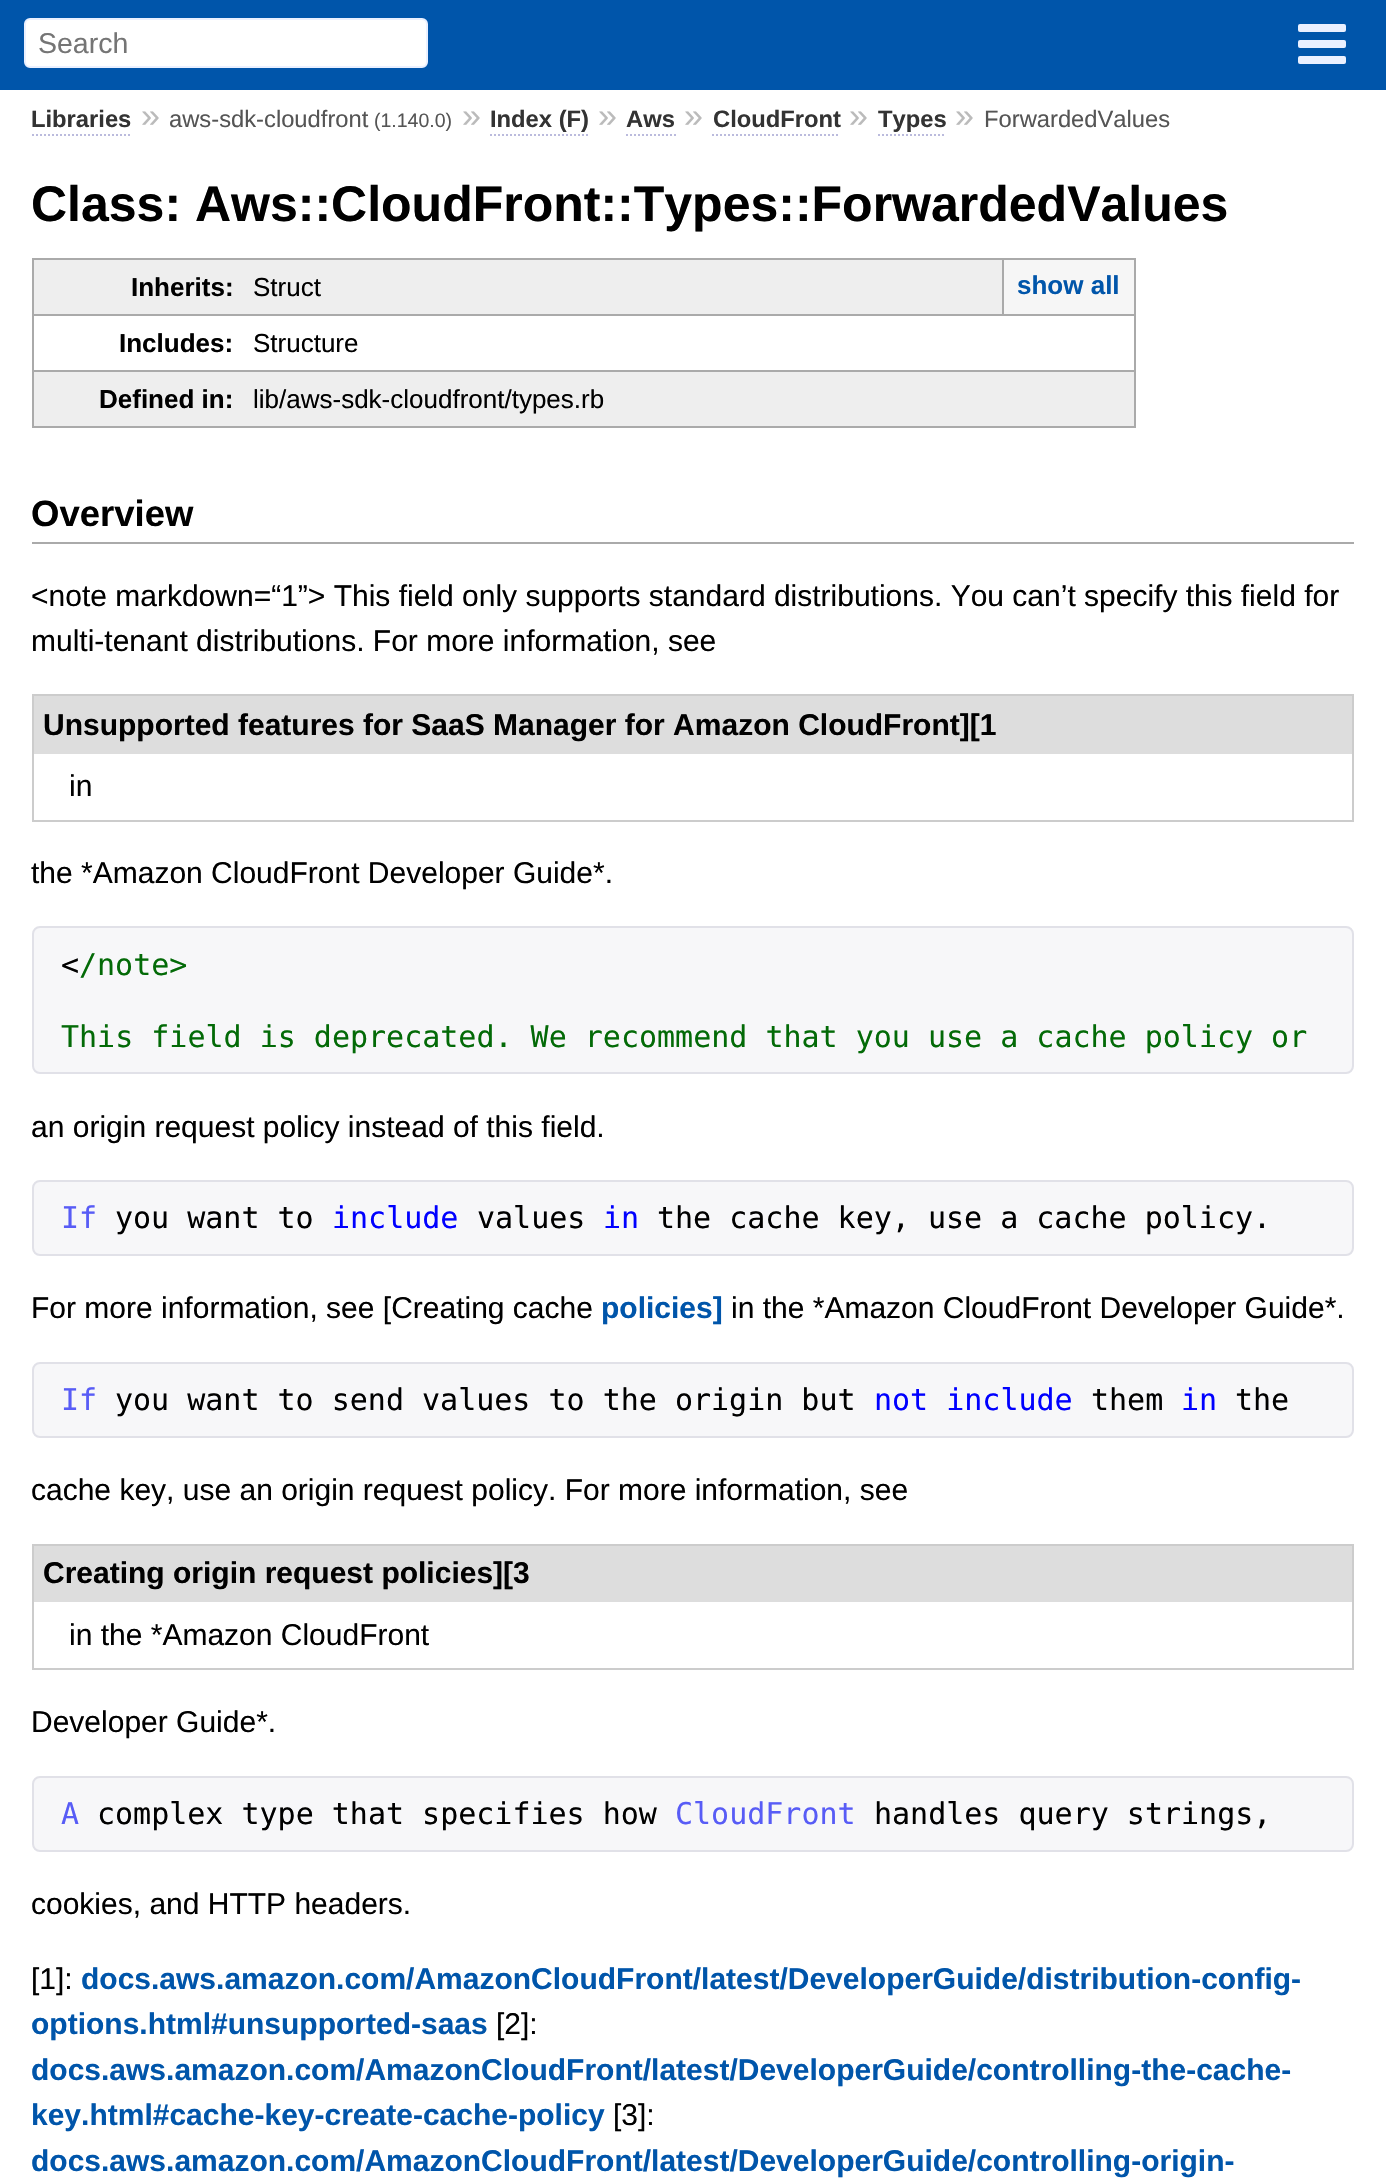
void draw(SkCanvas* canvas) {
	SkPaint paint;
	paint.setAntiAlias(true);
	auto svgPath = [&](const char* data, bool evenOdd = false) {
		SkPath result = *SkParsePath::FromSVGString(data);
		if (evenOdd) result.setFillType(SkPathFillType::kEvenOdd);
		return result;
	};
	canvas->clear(0xffffffff);
	paint.setColor(0xff0055aa);
	canvas->drawRect(SkRect::MakeXYWH(0, 0, 1386, 90), paint);
	paint.setColor(0xffffffff);
	canvas->drawRoundRect(SkRect::MakeXYWH(25, 19, 402, 48), 5, 5, paint);
	paint.setStroke(true);
	paint.setStrokeWidth(2);
	paint.setColor(0xffeaf0ff);
	canvas->drawRoundRect(SkRect::MakeXYWH(25, 19, 402, 48), 5, 5, paint);
	SkFont f1(fontMgr->matchFamilyStyle("Liberation Sans", SkFontStyle::Normal()), 28.5);
	f1.setSubpixel(true);
	paint.setStroke(false);
	paint.setColor(0xff757575);
	canvas->drawString("Search", 38, 53, f1, paint);
	paint.setColor(0xffeaf0ff);
	canvas->drawRoundRect(SkRect::MakeXYWH(1298, 24, 48, 8), 2, 2, paint);
	canvas->drawRoundRect(SkRect::MakeXYWH(1298, 40, 48, 8), 2, 2, paint);
	canvas->drawRoundRect(SkRect::MakeXYWH(1298, 56, 48, 8), 2, 2, paint);
	SkFont f2(fontMgr->matchFamilyStyle("Liberation Sans", SkFontStyle::Bold()), 23.75);
	f2.setSubpixel(true);
	paint.setColor(0xff333333);
	canvas->drawString("Libraries", 31, 127, f2, paint);
	paint.setStroke(true);
	paint.setColor(0xffbbbbdd);
	paint.setPathEffect(SkDashPathEffect::Make({{2, 2}}, 0));
	canvas->drawPath(svgPath("M32 135H132"), paint);
	paint.setPathEffect(nullptr);
	SkFont f3(fontMgr->matchFamilyStyle("Liberation Sans", SkFontStyle::Normal()), 34);
	f3.setSubpixel(true);
	paint.setStroke(false);
	paint.setColor(0xffbbbbbb);
	canvas->drawString("»", 141, 127, f3, paint);
	SkFont f4(fontMgr->matchFamilyStyle("Liberation Sans", SkFontStyle::Normal()), 23.75);
	f4.setSubpixel(true);
	paint.setColor(0xff555555);
	canvas->drawString("aws-sdk-cloudfront", 169, 127, f4, paint);
	SkFont f5(fontMgr->matchFamilyStyle("Liberation Sans", SkFontStyle::Normal()), 19.5);
	f5.setSubpixel(true);
	canvas->drawString("(1.140.0)", 374, 127, f5, paint);
	paint.setColor(0xffbbbbbb);
	canvas->drawString("»", 462, 127, f3, paint);
	paint.setColor(0xff333333);
	canvas->drawString("Index (F)", 490, 127, f2, paint);
	paint.setStroke(true);
	paint.setColor(0xffbbbbdd);
	paint.setPathEffect(SkDashPathEffect::Make({{2, 2}}, 0));
	canvas->drawPath(svgPath("M490 135H588"), paint);
	paint.setPathEffect(nullptr);
	paint.setStroke(false);
	paint.setColor(0xffbbbbbb);
	canvas->drawString("»", 598, 127, f3, paint);
	paint.setColor(0xff333333);
	canvas->drawString("Aws", 626, 127, f2, paint);
	paint.setStroke(true);
	paint.setColor(0xffbbbbdd);
	paint.setPathEffect(SkDashPathEffect::Make({{2, 2}}, 0));
	canvas->drawPath(svgPath("M626 135H676"), paint);
	paint.setPathEffect(nullptr);
	paint.setStroke(false);
	paint.setColor(0xffbbbbbb);
	canvas->drawString("»", 684, 127, f3, paint);
	paint.setColor(0xff333333);
	canvas->drawString("CloudFront", 713, 127, f2, paint);
	paint.setStroke(true);
	paint.setColor(0xffbbbbdd);
	paint.setPathEffect(SkDashPathEffect::Make({{2, 2}}, 0));
	canvas->drawPath(svgPath("M712 135H840"), paint);
	paint.setPathEffect(nullptr);
	paint.setStroke(false);
	paint.setColor(0xffbbbbbb);
	canvas->drawString("»", 849, 127, f3, paint);
	paint.setColor(0xff333333);
	canvas->drawString("Types", 878, 127, f2, paint);
	paint.setStroke(true);
	paint.setColor(0xffbbbbdd);
	paint.setPathEffect(SkDashPathEffect::Make({{2, 2}}, 0));
	canvas->drawPath(svgPath("M878 135H946"), paint);
	paint.setPathEffect(nullptr);
	paint.setStroke(false);
	paint.setColor(0xffbbbbbb);
	canvas->drawString("»", 955, 127, f3, paint);
	paint.setColor(0xff555555);
	canvas->drawString("ForwardedValues", 984, 127, f4, paint);
	SkFont f6(fontMgr->matchFamilyStyle("Liberation Sans", SkFontStyle::Bold()), 50);
	f6.setSubpixel(true);
	paint.setColor(0xff000000);
	canvas->drawString("Class: Aws::CloudFront::Types::ForwardedValues", 31, 221, f6, paint);
	paint.setColor(0xffeeeeee);
	canvas->drawRect(SkRect::MakeXYWH(34, 260, 968, 54), paint);
	paint.setColor(0xffaaaaaa);
	canvas->drawRect(SkRect::MakeXYWH(32, 258, 1104, 2), paint);
	canvas->drawRect(SkRect::MakeXYWH(32, 258, 2, 56), paint);
	SkFont f7(fontMgr->matchFamilyStyle("Liberation Sans", SkFontStyle::Bold()), 26);
	f7.setSubpixel(true);
	paint.setColor(0xff000000);
	canvas->drawString("Inherits:", 131, 296, f7, paint);
	paint.setColor(0xffaaaaaa);
	canvas->drawRect(SkRect::MakeXYWH(32, 314, 1104, 2), paint);
	canvas->drawRect(SkRect::MakeXYWH(32, 370, 1104, 2), paint);
	canvas->drawRect(SkRect::MakeXYWH(1134, 258, 2, 170), paint);
	SkFont f8(fontMgr->matchFamilyStyle("Liberation Sans", SkFontStyle::Normal()), 26);
	f8.setSubpixel(true);
	paint.setColor(0xff000000);
	canvas->drawString("Struct", 253, 296, f8, paint);
	paint.setColor(0xfff6f6f6);
	canvas->drawRect(SkRect::MakeXYWH(1004, 260, 130, 54), paint);
	paint.setColor(0xffaaaaaa);
	canvas->drawRect(SkRect::MakeXYWH(1002, 260, 2, 54), paint);
	paint.setColor(0xff0055aa);
	canvas->drawString("show all", 1017, 294, f7, paint);
	paint.setColor(0xffaaaaaa);
	canvas->drawRect(SkRect::MakeXYWH(32, 314, 2, 56), paint);
	paint.setColor(0xff000000);
	canvas->drawString("Includes:", 119, 352, f7, paint);
	canvas->drawString("Structure", 253, 352, f8, paint);
	paint.setColor(0xffeeeeee);
	canvas->drawRect(SkRect::MakeXYWH(34, 372, 1100, 54), paint);
	paint.setColor(0xffaaaaaa);
	canvas->drawRect(SkRect::MakeXYWH(32, 426, 222, 2), paint);
	canvas->drawRect(SkRect::MakeXYWH(32, 370, 2, 58), paint);
	paint.setColor(0xff000000);
	canvas->drawString("Defined in:", 99, 408, f7, paint);
	paint.setColor(0xffaaaaaa);
	canvas->drawRect(SkRect::MakeXYWH(254, 426, 882, 2), paint);
	paint.setColor(0xff000000);
	canvas->drawString("lib/aws-sdk-cloudfront/types.rb", 253, 408, f8, paint);
	paint.setColor(0xffaaaaaa);
	canvas->drawRect(SkRect::MakeXYWH(32, 542, 1322, 2), paint);
	SkFont f9(fontMgr->matchFamilyStyle("Liberation Sans", SkFontStyle::Bold()), 36.5);
	f9.setSubpixel(true);
	paint.setColor(0xff000000);
	canvas->drawString("Overview", 31, 526, f9, paint);
	SkFont f10(fontMgr->matchFamilyStyle("Liberation Sans", SkFontStyle::Normal()), 30);
	f10.setSubpixel(true);
	canvas->drawString("<note markdown=“1”> This field only supports standard distributions. You can’t specify this field for", 31, 606, f10, paint);
	canvas->drawString("multi-tenant distributions. For more information, see", 31, 651, f10, paint);
	paint.setStroke(true);
	paint.setColor(0xffcccccc);
	canvas->drawRect(SkRect::MakeXYWH(33, 695, 1320, 126), paint);
	paint.setStroke(false);
	paint.setColor(0xffdddddd);
	canvas->drawRect(SkRect::MakeXYWH(34, 696, 1318, 58), paint);
	SkFont f11(fontMgr->matchFamilyStyle("Liberation Sans", SkFontStyle::Bold()), 30);
	f11.setSubpixel(true);
	paint.setColor(0xff000000);
	canvas->drawString("Unsupported features for SaaS Manager for Amazon CloudFront][1", 43, 735, f11, paint);
	canvas->drawString("in", 69, 796, f10, paint);
	canvas->drawString("the *Amazon CloudFront Developer Guide*.", 31, 883, f10, paint);
	paint.setColor(0xfff7f7f9);
	canvas->drawRoundRect(SkRect::MakeXYWH(33, 927, 1320, 146), 7, 7, paint);
	paint.setStroke(true);
	paint.setColor(0xffe1e1e8);
	canvas->drawRoundRect(SkRect::MakeXYWH(33, 927, 1320, 146), 7, 7, paint);
	SkFont f12(fontMgr->matchFamilyStyle("DejaVu Sans Mono", SkFontStyle::Normal()), 30);
	f12.setSubpixel(true);
	paint.setStroke(false);
	paint.setColor(0xff000000);
	canvas->drawString("<", 61, 975, f12, paint);
	paint.setColor(0xff036a07);
	canvas->drawString("/note>", 79, 975, f12, paint);
	canvas->drawString("This field is deprecated. We recommend that you use a cache policy or", 61, 1047, f12, paint);
	paint.setColor(0xff000000);
	canvas->drawString("an origin request policy instead of this field.", 31, 1137, f10, paint);
	paint.setColor(0xfff7f7f9);
	canvas->drawRoundRect(SkRect::MakeXYWH(33, 1181, 1320, 74), 7, 7, paint);
	paint.setStroke(true);
	paint.setColor(0xffe1e1e8);
	canvas->drawRoundRect(SkRect::MakeXYWH(33, 1181, 1320, 74), 7, 7, paint);
	paint.setStroke(false);
	paint.setColor(0xff585cf6);
	canvas->drawString("If", 61, 1228, f12, paint);
	paint.setColor(0xff000000);
	canvas->drawString("you want to", 115, 1228, f12, paint);
	paint.setColor(0xff0000ff);
	canvas->drawString("include", 332, 1228, f12, paint);
	paint.setColor(0xff000000);
	canvas->drawString("values", 477, 1228, f12, paint);
	paint.setColor(0xff0000ff);
	canvas->drawString("in", 603, 1228, f12, paint);
	paint.setColor(0xff000000);
	canvas->drawString("the cache key, use a cache policy.", 657, 1228, f12, paint);
	canvas->drawString("For more information, see [Creating cache", 31, 1318, f10, paint);
	paint.setColor(0xff0055aa);
	canvas->drawString("policies]", 601, 1318, f11, paint);
	paint.setColor(0xff000000);
	canvas->drawString("in the *Amazon CloudFront Developer Guide*.", 731, 1318, f10, paint);
	paint.setColor(0xfff7f7f9);
	canvas->drawRoundRect(SkRect::MakeXYWH(33, 1363, 1320, 74), 7, 7, paint);
	paint.setStroke(true);
	paint.setColor(0xffe1e1e8);
	canvas->drawRoundRect(SkRect::MakeXYWH(33, 1363, 1320, 74), 7, 7, paint);
	paint.setStroke(false);
	paint.setColor(0xff585cf6);
	canvas->drawString("If", 61, 1410, f12, paint);
	paint.setColor(0xff000000);
	canvas->drawString("you want to send values to the origin but", 115, 1410, f12, paint);
	paint.setColor(0xff0000ff);
	canvas->drawString("not include", 874, 1410, f12, paint);
	paint.setColor(0xff000000);
	canvas->drawString("them", 1091, 1410, f12, paint);
	paint.setColor(0xff0000ff);
	canvas->drawString("in", 1181, 1410, f12, paint);
	paint.setColor(0xff000000);
	canvas->drawString("the", 1235, 1410, f12, paint);
	canvas->drawString("cache key, use an origin request policy. For more information, see", 31, 1500, f10, paint);
	paint.setStroke(true);
	paint.setColor(0xffcccccc);
	canvas->drawRect(SkRect::MakeXYWH(33, 1545, 1320, 124), paint);
	paint.setStroke(false);
	paint.setColor(0xffdddddd);
	canvas->drawRect(SkRect::MakeXYWH(34, 1546, 1318, 56), paint);
	paint.setColor(0xff000000);
	canvas->drawString("Creating origin request policies][3", 43, 1583, f11, paint);
	canvas->drawString("in the *Amazon CloudFront", 69, 1645, f10, paint);
	canvas->drawString("Developer Guide*.", 31, 1732, f10, paint);
	paint.setColor(0xfff7f7f9);
	canvas->drawRoundRect(SkRect::MakeXYWH(33, 1777, 1320, 74), 7, 7, paint);
	paint.setStroke(true);
	paint.setColor(0xffe1e1e8);
	canvas->drawRoundRect(SkRect::MakeXYWH(33, 1777, 1320, 74), 7, 7, paint);
	paint.setStroke(false);
	paint.setColor(0xff585cf6);
	canvas->drawString("A", 61, 1824, f12, paint);
	paint.setColor(0xff000000);
	canvas->drawString("complex type that specifies how", 97, 1824, f12, paint);
	paint.setColor(0xff585cf6);
	canvas->drawString("CloudFront", 675, 1824, f12, paint);
	paint.setColor(0xff000000);
	canvas->drawString("handles query strings,", 874, 1824, f12, paint);
	canvas->drawString("cookies, and HTTP headers.", 31, 1914, f10, paint);
	canvas->drawString("[1]:", 31, 1989, f10, paint);
	paint.setColor(0xff0055aa);
	canvas->drawString("docs.aws.amazon.com/AmazonCloudFront/latest/DeveloperGuide/distribution-config-", 81, 1989, f11, paint);
	canvas->drawString("options.html#unsupported-saas", 31, 2034, f11, paint);
	paint.setColor(0xff000000);
	canvas->drawString("[2]:", 496, 2034, f10, paint);
	paint.setColor(0xff0055aa);
	canvas->drawString("docs.aws.amazon.com/AmazonCloudFront/latest/DeveloperGuide/controlling-the-cache-", 31, 2080, f11, paint);
	canvas->drawString("key.html#cache-key-create-cache-policy", 31, 2125, f11, paint);
	paint.setColor(0xff000000);
	canvas->drawString("[3]:", 613, 2125, f10, paint);
	paint.setColor(0xff0055aa);
	canvas->drawString("docs.aws.amazon.com/AmazonCloudFront/latest/DeveloperGuide/controlling-origin-", 31, 2171, f11, paint);
}
